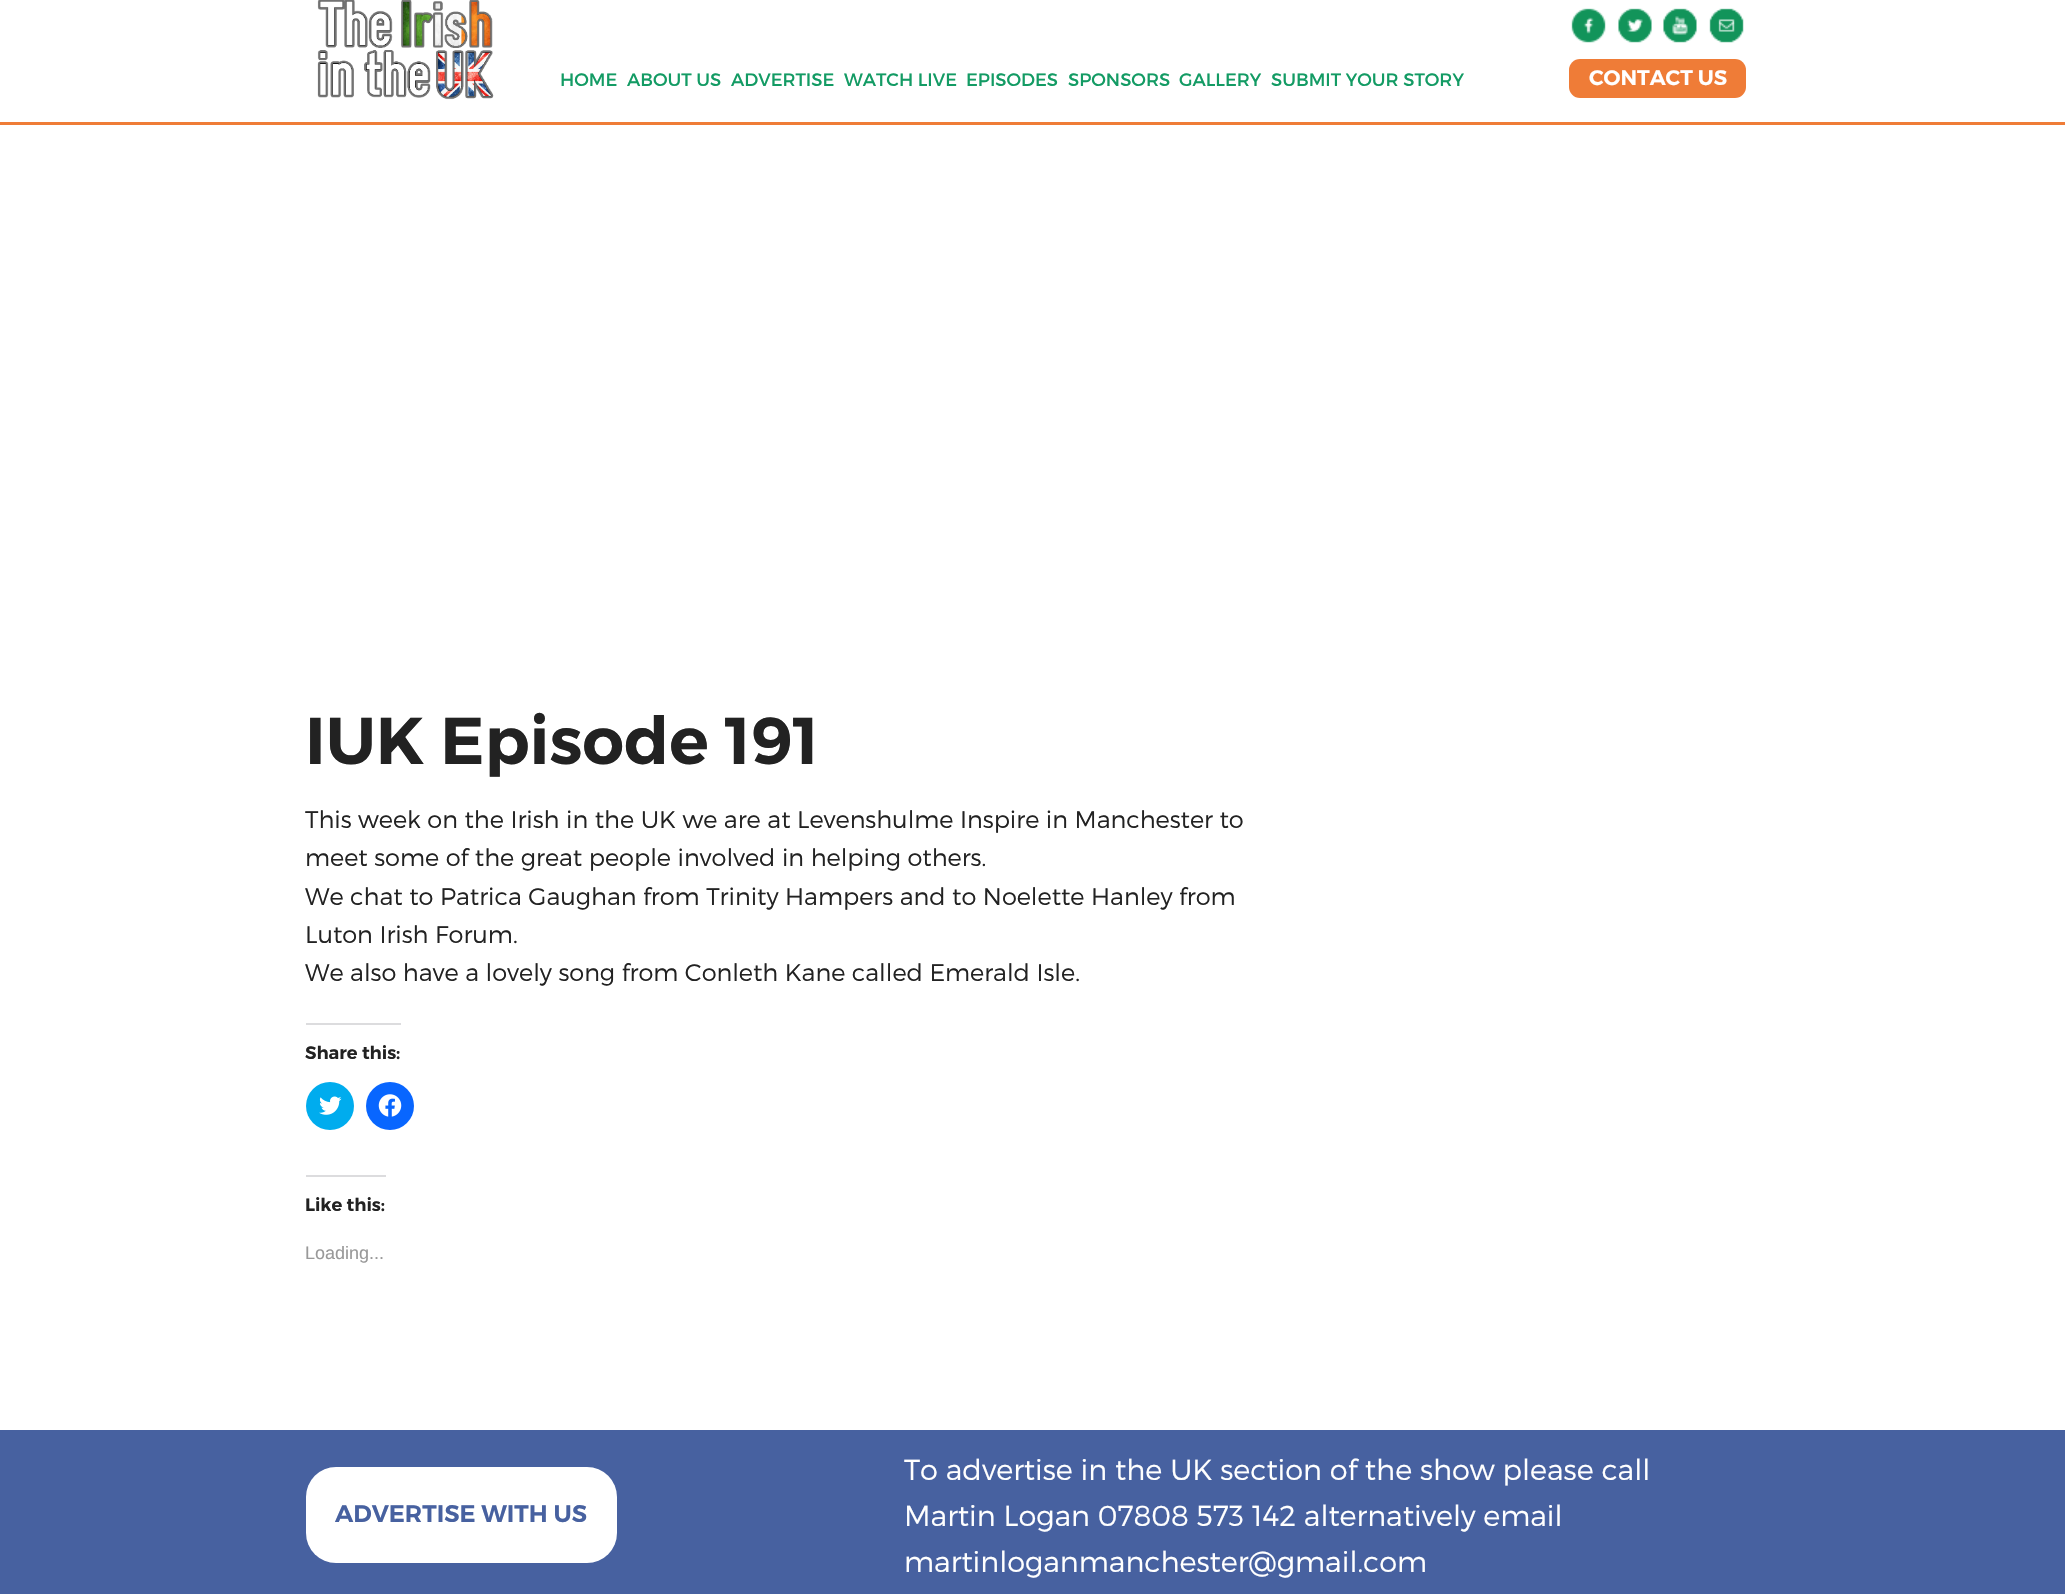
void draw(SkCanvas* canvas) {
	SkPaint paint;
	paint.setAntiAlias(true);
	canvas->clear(0xffffffff);
	paint.setColor(0xffef7c37);
	canvas->drawRect(SkRect::MakeXYWH(0, 122, 2065, 3), paint);
	canvas->drawImageRect(SkImages::DeferredFromEncodedData(SkData::MakeFromFileName("img1.png")), SkRect::MakeXYWH(317, 0, 177, 100), SkSamplingOptions());
	SkFont f1(fontMgr->matchFamilyStyle("Montserrat", SkFontStyle::Normal()), 18);
	f1.setSubpixel(true);
	paint.setColor(0xff139b64);
	canvas->drawString("HOME", 560, 86, f1, paint);
	canvas->drawString("ABOUT US", 627, 86, f1, paint);
	canvas->drawString("ADVERTISE", 731, 86, f1, paint);
	canvas->drawString("WATCH LIVE", 844, 86, f1, paint);
	canvas->drawString("EPISODES", 966, 86, f1, paint);
	canvas->drawString("SPONSORS", 1068, 86, f1, paint);
	canvas->drawString("GALLERY", 1179, 86, f1, paint);
	canvas->drawString("SUBMIT YOUR STORY", 1271, 86, f1, paint);
	canvas->drawImageRect(SkImages::DeferredFromEncodedData(SkData::MakeFromFileName("img2.png")), SkRect::MakeXYWH(1571, 8, 35, 35), SkSamplingOptions());
	canvas->drawImageRect(SkImages::DeferredFromEncodedData(SkData::MakeFromFileName("img3.png")), SkRect::MakeXYWH(1618, 8, 34, 35), SkSamplingOptions());
	canvas->drawImageRect(SkImages::DeferredFromEncodedData(SkData::MakeFromFileName("img4.png")), SkRect::MakeXYWH(1663, 8, 34, 35), SkSamplingOptions());
	canvas->drawImageRect(SkImages::DeferredFromEncodedData(SkData::MakeFromFileName("img5.png")), SkRect::MakeXYWH(1709, 8, 35, 35), SkSamplingOptions());
	paint.setColor(0xffef7c37);
	canvas->drawRoundRect(SkRect::MakeXYWH(1569, 59, 177, 39), 11, 11, paint);
	SkFont f2(fontMgr->matchFamilyStyle("Montserrat", SkFontStyle(600, SkFontStyle::kNormal_Width, SkFontStyle::kUpright_Slant)), 21);
	f2.setSubpixel(true);
	paint.setColor(0xffffffff);
	canvas->drawString("CONTACT US", 1589, 85, f2, paint);
	SkFont f3(fontMgr->matchFamilyStyle("Montserrat", SkFontStyle(600, SkFontStyle::kNormal_Width, SkFontStyle::kUpright_Slant)), 66);
	f3.setSubpixel(true);
	paint.setColor(0xff222222);
	canvas->drawString("IUK Episode 191", 305, 764, f3, paint);
	SkFont f4(fontMgr->matchFamilyStyle("Montserrat", SkFontStyle(300, SkFontStyle::kNormal_Width, SkFontStyle::kUpright_Slant)), 24);
	f4.setSubpixel(true);
	canvas->drawString("This week on the Irish in the UK we are at Levenshulme Inspire in Manchester to", 305, 828, f4, paint);
	canvas->drawString("meet some of the great people involved in helping others.", 305, 866, f4, paint);
	canvas->drawString("We chat to Patrica Gaughan from Trinity Hampers and to Noelette Hanley from", 305, 905, f4, paint);
	canvas->drawString("Luton Irish Forum.", 305, 943, f4, paint);
	canvas->drawString("We also have a lovely song from Conleth Kane called Emerald Isle.", 305, 981, f4, paint);
	paint.setColor(0xffdcdcde);
	canvas->drawRect(SkRect::MakeXYWH(306, 1023, 95, 2), paint);
	SkFont f5(fontMgr->matchFamilyStyle("Montserrat", SkFontStyle(600, SkFontStyle::kNormal_Width, SkFontStyle::kUpright_Slant)), 18);
	f5.setSubpixel(true);
	paint.setColor(0xff222222);
	canvas->drawString("Share this:", 305, 1059, f5, paint);
	paint.setColor(0xff00acee);
	canvas->drawCircle(330, 1106, 24, paint);
	canvas->drawImageRect(SkImages::DeferredFromEncodedData(SkData::MakeFromFileName("img6.png")), SkRect::MakeXYWH(319, 1096, 23, 19), SkSamplingOptions());
	paint.setColor(0xff0866ff);
	canvas->drawCircle(390, 1106, 24, paint);
	canvas->drawImageRect(SkImages::DeferredFromEncodedData(SkData::MakeFromFileName("img7.png")), SkRect::MakeXYWH(378, 1094, 24, 23), SkSamplingOptions());
	paint.setColor(0xffdcdcde);
	canvas->drawRect(SkRect::MakeXYWH(306, 1175, 80, 2), paint);
	paint.setColor(0xff222222);
	canvas->drawString("Like this:", 305, 1211, f5, paint);
	SkFont f6(fontMgr->matchFamilyStyle("Liberation Sans", SkFontStyle::Normal()), 18);
	f6.setSubpixel(true);
	paint.setColor(0xff999999);
	canvas->drawString("Loading...", 305, 1259, f6, paint);
	paint.setColor(0xff4761a0);
	canvas->drawRect(SkRect::MakeXYWH(0, 1430, 2065, 164), paint);
	paint.setColor(0xffffffff);
	canvas->drawRoundRect(SkRect::MakeXYWH(306, 1467, 311, 96), 30, 30, paint);
	SkFont f7(fontMgr->matchFamilyStyle("Montserrat", SkFontStyle(600, SkFontStyle::kNormal_Width, SkFontStyle::kUpright_Slant)), 24);
	f7.setSubpixel(true);
	paint.setColor(0xff4761a0);
	canvas->drawString("ADVERTISE WITH US", 335, 1522, f7, paint);
	SkFont f8(fontMgr->matchFamilyStyle("Montserrat", SkFontStyle(300, SkFontStyle::kNormal_Width, SkFontStyle::kUpright_Slant)), 28.8);
	f8.setSubpixel(true);
	paint.setColor(0xffffffff);
	canvas->drawString("To advertise in the UK section of the show please call", 904, 1480, f8, paint);
	canvas->drawString("Martin Logan 07808 573 142 alternatively email", 904, 1526, f8, paint);
	canvas->drawString("martinloganmanchester@gmail.com", 904, 1572, f8, paint);
}
